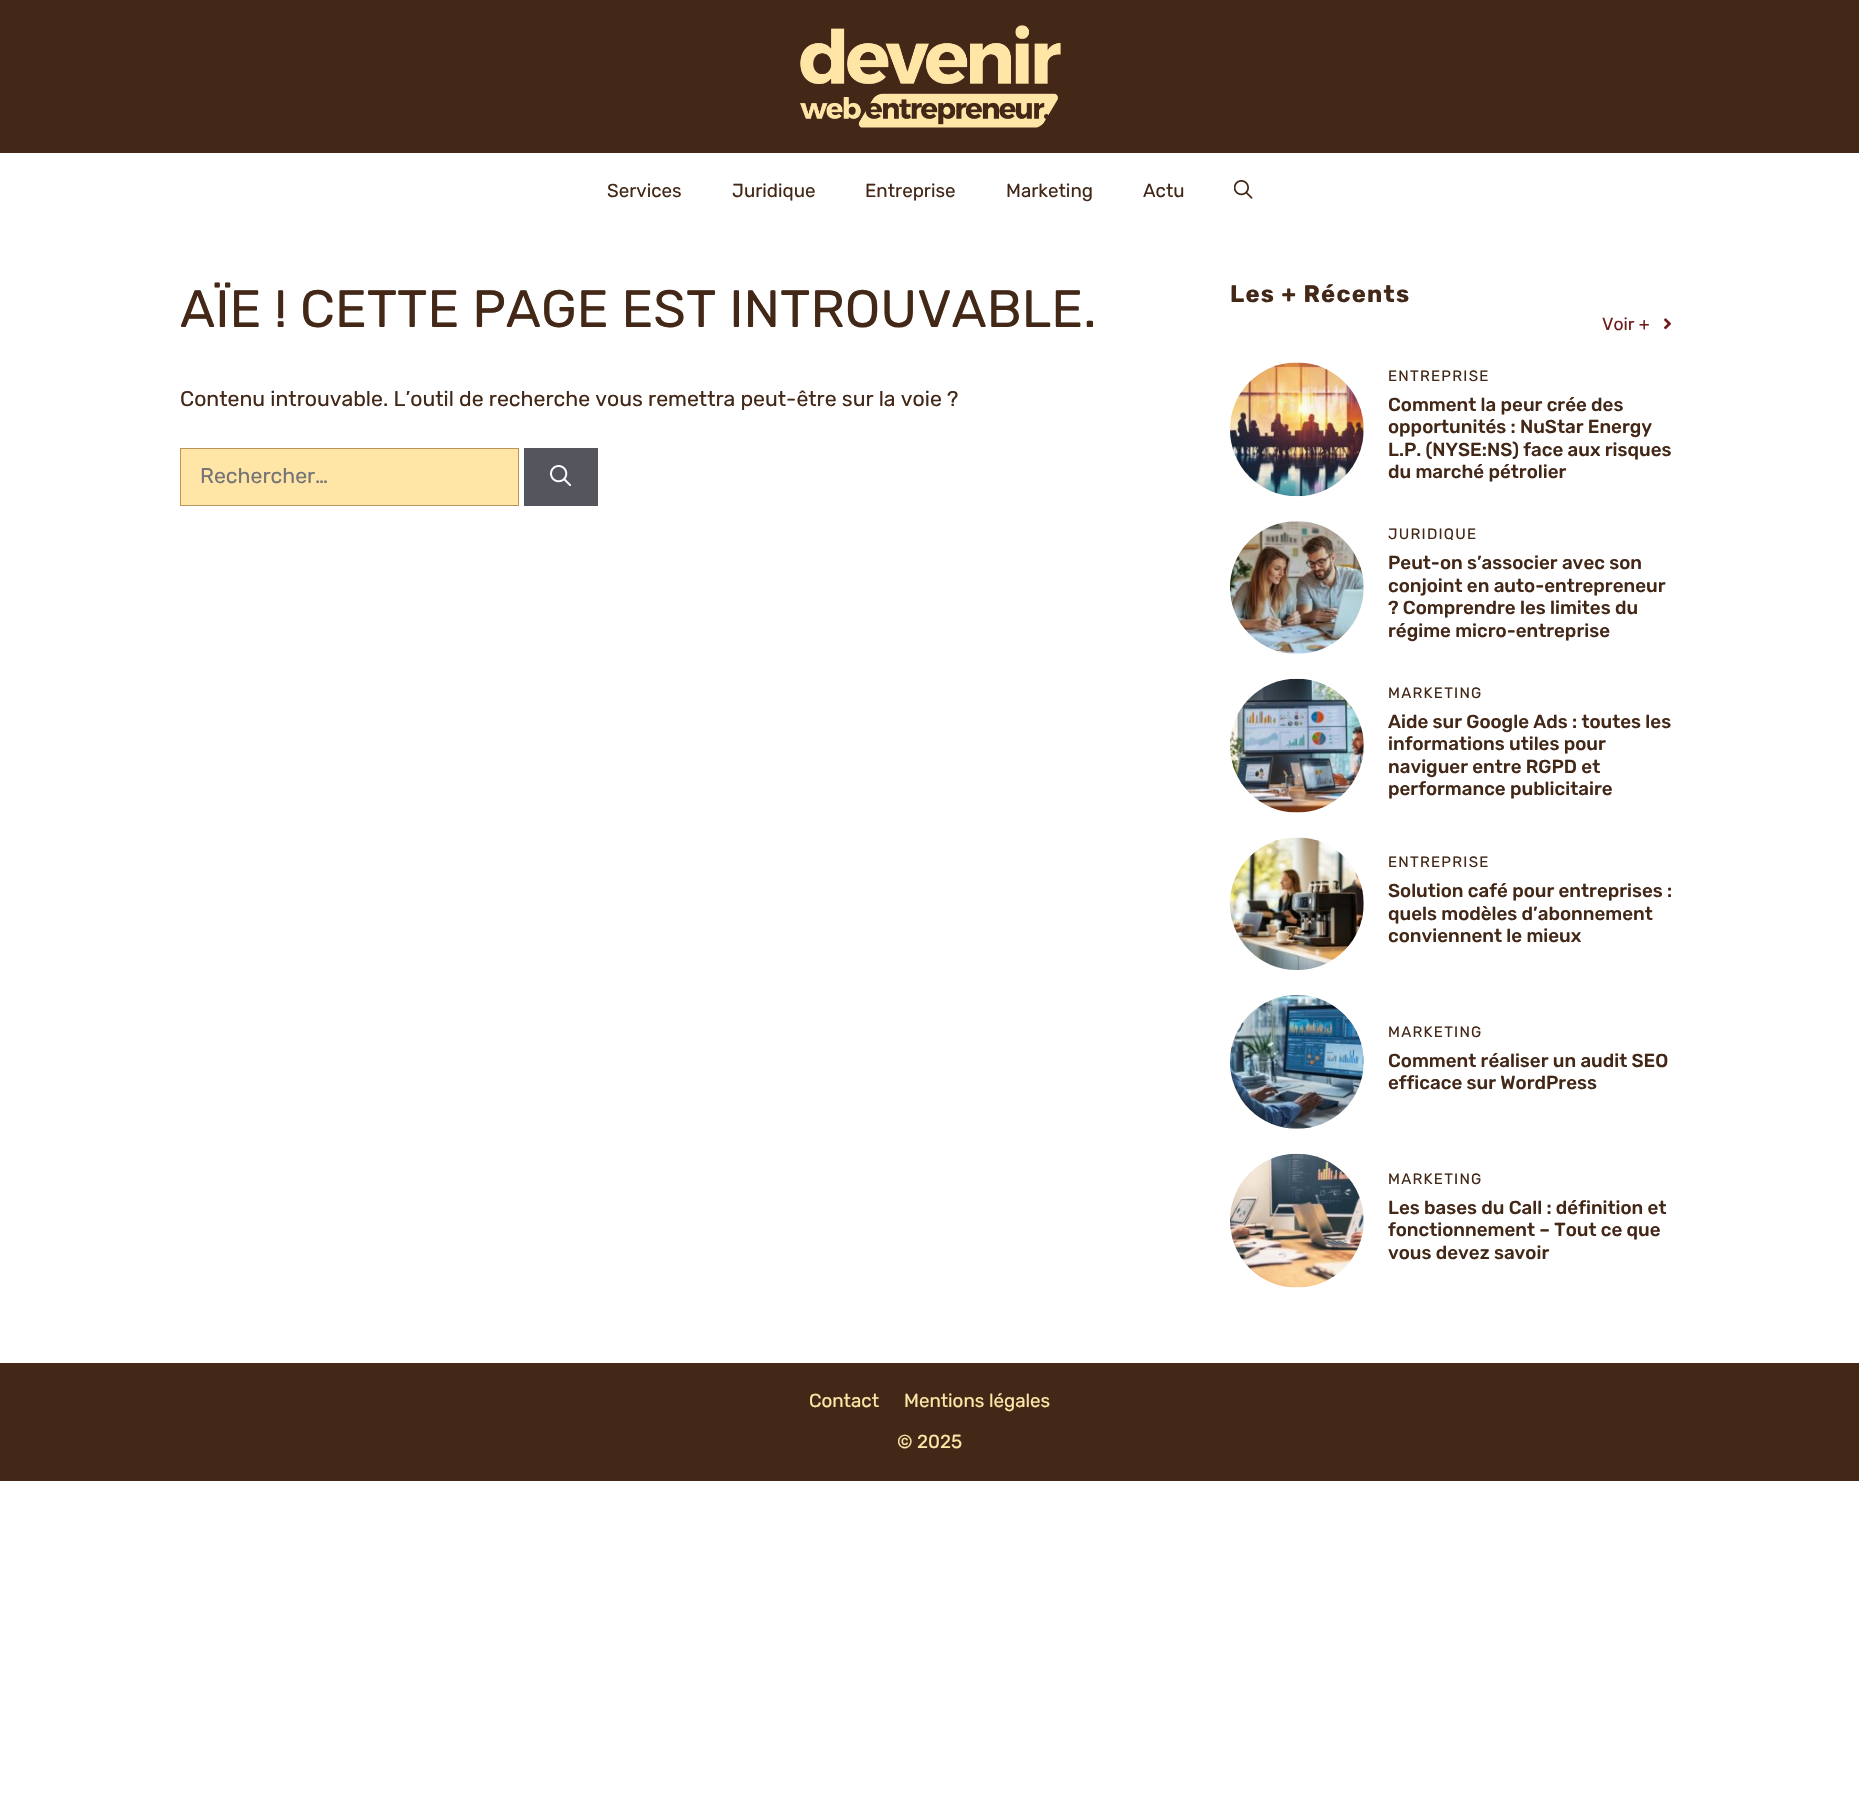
void draw(SkCanvas* canvas) {
	SkPaint paint;
	paint.setAntiAlias(true);
	auto spacedText = [&](const char* s, float x, float y, const SkFont& font, const SkPaint& ink, float letter, float word) {
		std::vector<SkGlyphID> glyphs(font.countText(s, strlen(s), SkTextEncoding::kUTF8));
		std::vector<float> xs(glyphs.size());
		font.textToGlyphs(s, strlen(s), SkTextEncoding::kUTF8, glyphs);
		font.getXPos(glyphs, xs, x);
		float extra = 0;
		for (size_t i = 0; i < glyphs.size(); i++) {
			xs[i] += extra;
			extra += letter + word * (glyphs[i] == font.unicharToGlyph(' '));
		}
		canvas->drawTextBlob(SkTextBlob::MakeFromPosHGlyphs(glyphs, xs, y, font), 0, 0, ink);
	};
	canvas->clear(0xffffffff);
	paint.setColor(0xff432818);
	canvas->drawRect(SkRect::MakeXYWH(0, 0, 1859, 153), paint);
	canvas->drawImageRect(SkImages::DeferredFromEncodedData(SkData::MakeFromFileName("img1.png")), SkRect::MakeXYWH(800, 25, 261, 103), SkSamplingOptions());
	SkFont f1(fontMgr->matchFamilyStyle("Rubik", SkFontStyle::Normal()), 18.75);
	f1.setSubpixel(true);
	canvas->drawString("Services", 607, 197, f1, paint);
	canvas->drawString("Juridique", 732, 197, f1, paint);
	canvas->drawString("Entreprise", 865, 197, f1, paint);
	canvas->drawString("Marketing", 1006, 197, f1, paint);
	canvas->drawString("Actu", 1143, 197, f1, paint);
	canvas->drawImageRect(SkImages::DeferredFromEncodedData(SkData::MakeFromFileName("img2.png")), SkRect::MakeXYWH(1234, 180, 19, 19), SkSamplingOptions());
	SkFont f2(fontMgr->matchFamilyStyle("Rubik", SkFontStyle::Normal()), 52.5);
	f2.setSubpixel(true);
	canvas->drawString("AÏE ! CETTE PAGE EST INTROUVABLE.", 180, 327, f2, paint);
	SkFont f3(fontMgr->matchFamilyStyle("Rubik", SkFontStyle::Normal()), 21.25);
	f3.setSubpixel(true);
	canvas->drawString("Contenu introuvable. L’outil de recherche vous remettra peut-être sur la voie ?", 180, 406, f3, paint);
	paint.setColor(0xffffe6a7);
	canvas->drawRect(SkRect::MakeXYWH(180.5, 448.5, 338, 57), paint);
	paint.setStroke(true);
	paint.setStrokeWidth(1);
	paint.setColor(0xffbb9457);
	canvas->drawRect(SkRect::MakeXYWH(180.5, 448.5, 338, 57), paint);
	paint.setStroke(false);
	paint.setColor(0xff757575);
	canvas->drawString("Rechercher…", 200, 483, f3, paint);
	paint.setColor(0xff55555e);
	canvas->drawRect(SkRect::MakeXYWH(524, 448, 74, 58), paint);
	canvas->drawImageRect(SkImages::DeferredFromEncodedData(SkData::MakeFromFileName("img3.png")), SkRect::MakeXYWH(550, 465, 21, 21), SkSamplingOptions());
	SkFont f4(fontMgr->matchFamilyStyle("Rubik", SkFontStyle::Bold()), 23.75);
	f4.setSubpixel(true);
	paint.setColor(0xff432818);
	spacedText("Les + Récents", 1230, 302, f4, paint, 1.25, 0);
	SkFont f5(fontMgr->matchFamilyStyle("Rubik", SkFontStyle::Normal()), 17.5);
	f5.setSubpixel(true);
	paint.setColor(0xff6f1d1b);
	canvas->drawString("Voir +", 1602, 330, f5, paint);
	canvas->drawImageRect(SkImages::DeferredFromEncodedData(SkData::MakeFromFileName("img4.png")), SkRect::MakeXYWH(1664, 318, 7, 12), SkSamplingOptions());
	canvas->drawImageRect(SkImages::DeferredFromEncodedData(SkData::MakeFromFileName("img5.png")), SkRect::MakeXYWH(1230, 362, 134, 135), SkSamplingOptions());
	SkFont f6(fontMgr->matchFamilyStyle("Rubik", SkFontStyle::Normal()), 15);
	f6.setSubpixel(true);
	paint.setColor(0xff432818);
	spacedText("ENTREPRISE", 1388, 381, f6, paint, 1.25, 0);
	SkFont f7(fontMgr->matchFamilyStyle("Rubik", SkFontStyle(500, SkFontStyle::kNormal_Width, SkFontStyle::kUpright_Slant)), 18.75);
	f7.setSubpixel(true);
	canvas->drawString("Comment la peur crée des", 1388, 411, f7, paint);
	canvas->drawString("opportunités : NuStar Energy", 1388, 433, f7, paint);
	canvas->drawString("L.P. (NYSE:NS) face aux risques", 1388, 456, f7, paint);
	canvas->drawString("du marché pétrolier", 1388, 478, f7, paint);
	canvas->drawImageRect(SkImages::DeferredFromEncodedData(SkData::MakeFromFileName("img6.png")), SkRect::MakeXYWH(1230, 521, 134, 133), SkSamplingOptions());
	spacedText("JURIDIQUE", 1388, 539, f6, paint, 1.25, 0);
	canvas->drawString("Peut-on s’associer avec son", 1388, 569, f7, paint);
	canvas->drawString("conjoint en auto-entrepreneur", 1388, 592, f7, paint);
	canvas->drawString("? Comprendre les limites du", 1388, 614, f7, paint);
	canvas->drawString("régime micro-entreprise", 1388, 637, f7, paint);
	canvas->drawImageRect(SkImages::DeferredFromEncodedData(SkData::MakeFromFileName("img7.png")), SkRect::MakeXYWH(1230, 678, 134, 135), SkSamplingOptions());
	spacedText("MARKETING", 1388, 698, f6, paint, 1.25, 0);
	canvas->drawString("Aide sur Google Ads : toutes les", 1388, 728, f7, paint);
	canvas->drawString("informations utiles pour", 1388, 750, f7, paint);
	canvas->drawString("naviguer entre RGPD et", 1388, 773, f7, paint);
	canvas->drawString("performance publicitaire", 1388, 795, f7, paint);
	canvas->drawImageRect(SkImages::DeferredFromEncodedData(SkData::MakeFromFileName("img8.png")), SkRect::MakeXYWH(1230, 837, 134, 133), SkSamplingOptions());
	spacedText("ENTREPRISE", 1388, 867, f6, paint, 1.25, 0);
	canvas->drawString("Solution café pour entreprises :", 1388, 897, f7, paint);
	canvas->drawString("quels modèles d’abonnement", 1388, 920, f7, paint);
	canvas->drawString("conviennent le mieux", 1388, 942, f7, paint);
	canvas->drawImageRect(SkImages::DeferredFromEncodedData(SkData::MakeFromFileName("img9.png")), SkRect::MakeXYWH(1230, 995, 134, 134), SkSamplingOptions());
	spacedText("MARKETING", 1388, 1037, f6, paint, 1.25, 0);
	canvas->drawString("Comment réaliser un audit SEO", 1388, 1067, f7, paint);
	canvas->drawString("efficace sur WordPress", 1388, 1089, f7, paint);
	canvas->drawImageRect(SkImages::DeferredFromEncodedData(SkData::MakeFromFileName("img10.png")), SkRect::MakeXYWH(1230, 1153, 134, 135), SkSamplingOptions());
	spacedText("MARKETING", 1388, 1184, f6, paint, 1.25, 0);
	canvas->drawString("Les bases du Call : définition et", 1388, 1214, f7, paint);
	canvas->drawString("fonctionnement – Tout ce que", 1388, 1236, f7, paint);
	canvas->drawString("vous devez savoir", 1388, 1259, f7, paint);
	canvas->drawRect(SkRect::MakeXYWH(0, 1363, 1859, 118), paint);
	paint.setColor(0xffffe6a7);
	canvas->drawString("Contact", 809, 1407, f1, paint);
	canvas->drawString("Mentions légales", 904, 1407, f1, paint);
	canvas->drawString("© 2025", 897, 1448, f1, paint);
}
